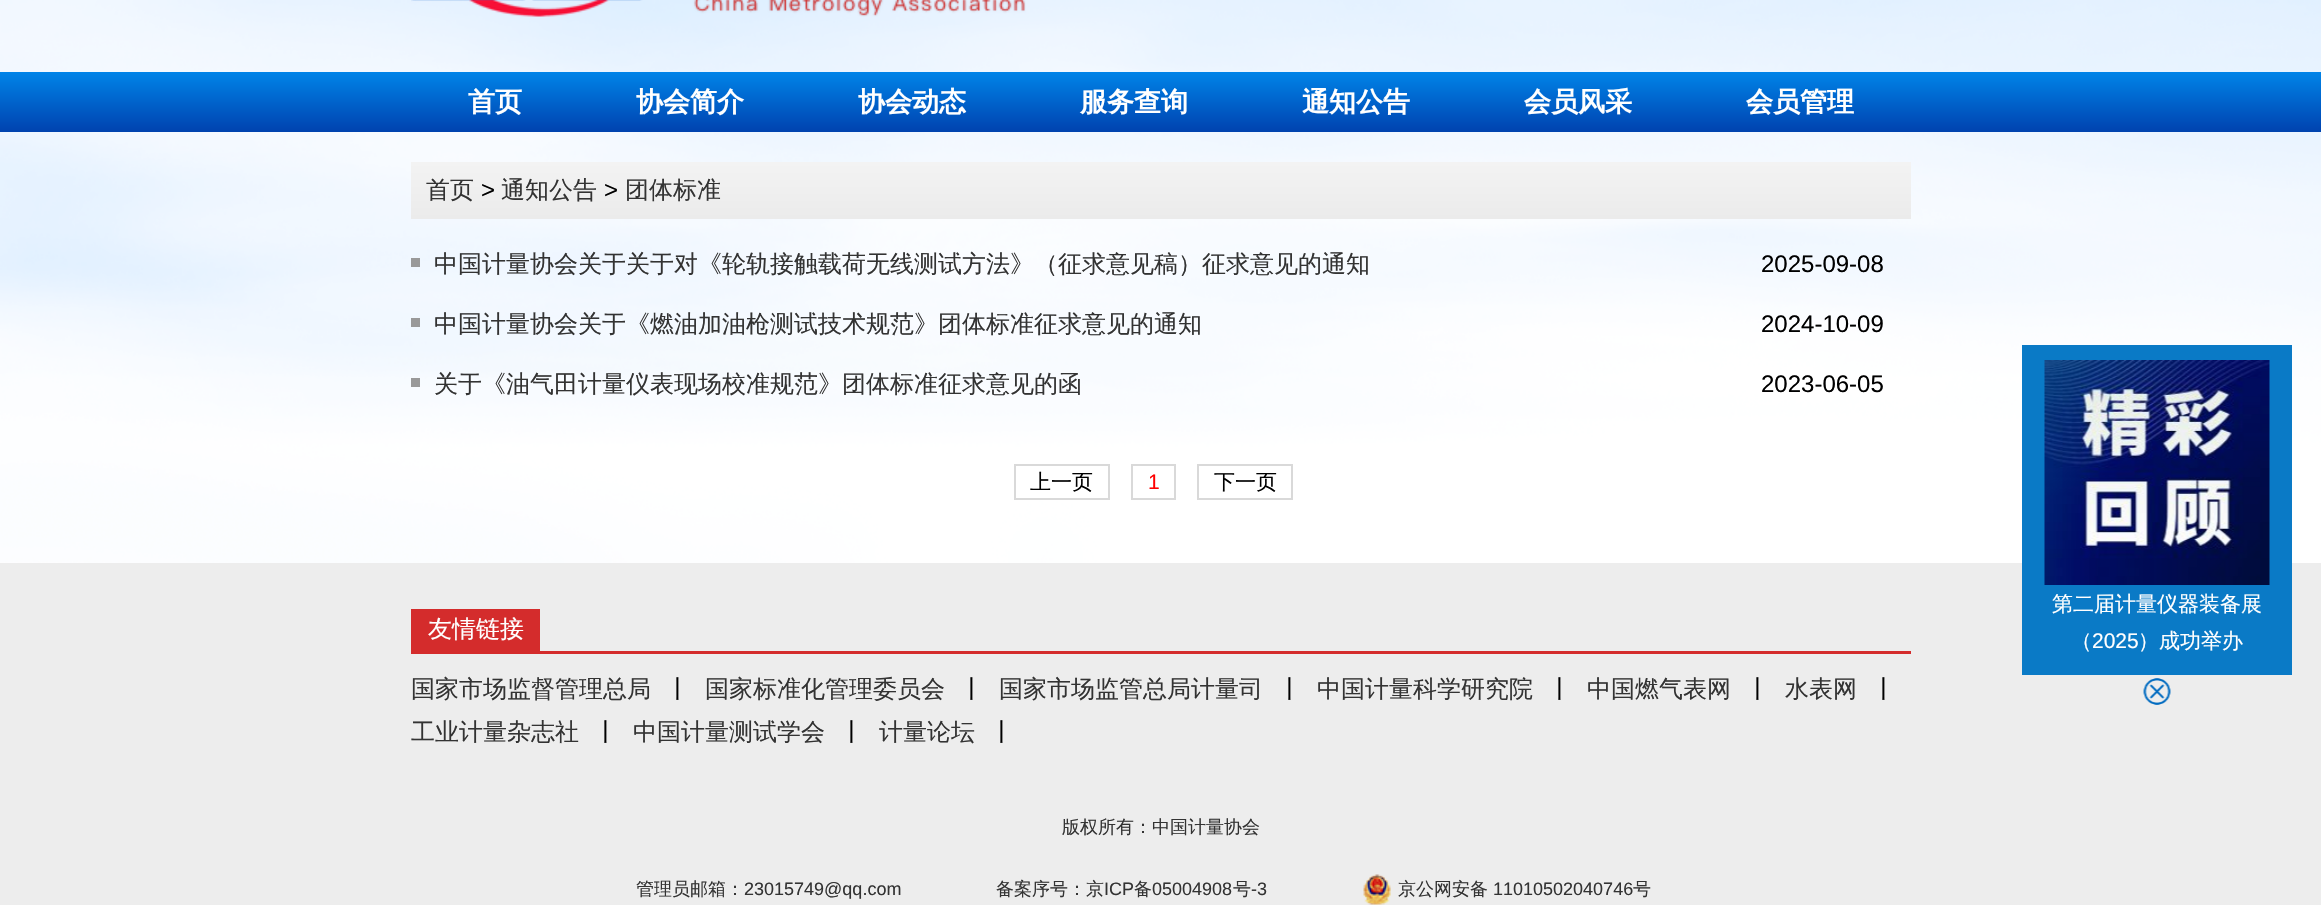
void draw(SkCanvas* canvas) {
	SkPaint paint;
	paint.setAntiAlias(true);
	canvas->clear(0xffffffff);
	canvas->drawImageRect(SkImages::DeferredFromEncodedData(SkData::MakeFromFileName("img1.png")), SkRect::MakeXYWH(0, 0, 2321, 563), SkSamplingOptions());
	canvas->drawImageRect(SkImages::DeferredFromEncodedData(SkData::MakeFromFileName("img2.png")), SkRect::MakeXYWH(411, 0, 615, 17), SkSamplingOptions());
	{
		const SkColor colors[] = {0xff0084e8, 0xff0042af};
		const float stops[] = {0, 1};
		const SkPoint ends[] = {{1161, 72}, {1161, 132}};
		paint.setShader(SkGradientShader::MakeLinear(ends, colors, stops, 2, SkTileMode::kClamp));
		paint.setAlpha(255);
	}
	canvas->drawRect(SkRect::MakeXYWH(0, 72, 2321, 60), paint);
	SkFont f1(fontMgr->matchFamilyStyle("WenQuanYi Zen Hei", SkFontStyle::Bold()), 27);
	f1.setSubpixel(true);
	paint.setShader(nullptr);
	paint.setColor(0xffffffff);
	canvas->drawString("首页", 468, 111, f1, paint);
	canvas->drawString("协会简介", 636, 111, f1, paint);
	canvas->drawString("协会动态", 858, 111, f1, paint);
	canvas->drawString("服务查询", 1080, 111, f1, paint);
	canvas->drawString("通知公告", 1302, 111, f1, paint);
	canvas->drawString("会员风采", 1524, 111, f1, paint);
	canvas->drawString("会员管理", 1746, 111, f1, paint);
	{
		const SkColor colors[] = {0xfff3f3f3, 0xffebebeb};
		const float stops[] = {0, 1};
		const SkPoint ends[] = {{1161, 162}, {1161, 219}};
		paint.setShader(SkGradientShader::MakeLinear(ends, colors, stops, 2, SkTileMode::kClamp));
		paint.setAlpha(255);
	}
	canvas->drawRect(SkRect::MakeXYWH(411, 162, 1500, 57), paint);
	SkFont f2(fontMgr->matchFamilyStyle("WenQuanYi Zen Hei", SkFontStyle(500, SkFontStyle::kNormal_Width, SkFontStyle::kUpright_Slant)), 24);
	f2.setSubpixel(true);
	paint.setShader(nullptr);
	paint.setColor(0xff333333);
	canvas->drawString("首页", 426, 198, f2, paint);
	SkFont f3(fontMgr->matchFamilyStyle("Liberation Sans", SkFontStyle::Normal()), 24);
	f3.setSubpixel(true);
	paint.setColor(0xff000000);
	canvas->drawString(">", 481, 198, f3, paint);
	paint.setColor(0xff333333);
	canvas->drawString("通知公告", 501, 198, f2, paint);
	paint.setColor(0xff000000);
	canvas->drawString(">", 604, 198, f3, paint);
	paint.setColor(0xff333333);
	canvas->drawString("团体标准", 625, 198, f2, paint);
	paint.setColor(0xff999999);
	canvas->drawRect(SkRect::MakeXYWH(411, 258, 9, 9), paint);
	paint.setColor(0xff333333);
	canvas->drawString("中国计量协会关于关于对《轮轨接触载荷无线测试方法》（征求意见稿）征求意见的通知", 434, 272, f2, paint);
	paint.setColor(0xff000000);
	canvas->drawString("2025-09-08", 1761, 272, f3, paint);
	paint.setColor(0xff999999);
	canvas->drawRect(SkRect::MakeXYWH(411, 318, 9, 9), paint);
	paint.setColor(0xff333333);
	canvas->drawString("中国计量协会关于《燃油加油枪测试技术规范》团体标准征求意见的通知", 434, 332, f2, paint);
	paint.setColor(0xff000000);
	canvas->drawString("2024-10-09", 1761, 332, f3, paint);
	paint.setColor(0xff999999);
	canvas->drawRect(SkRect::MakeXYWH(411, 378, 9, 9), paint);
	paint.setColor(0xff333333);
	canvas->drawString("关于《油气田计量仪表现场校准规范》团体标准征求意见的函", 434, 392, f2, paint);
	paint.setColor(0xff000000);
	canvas->drawString("2023-06-05", 1761, 392, f3, paint);
	paint.setStroke(true);
	paint.setStrokeWidth(2);
	paint.setColor(0xffd9d9d9);
	canvas->drawRect(SkRect::MakeXYWH(1015, 465, 94, 34), paint);
	SkFont f4(fontMgr->matchFamilyStyle("WenQuanYi Zen Hei", SkFontStyle(500, SkFontStyle::kNormal_Width, SkFontStyle::kUpright_Slant)), 21);
	f4.setSubpixel(true);
	paint.setStroke(false);
	paint.setColor(0xff000000);
	canvas->drawString("上一页", 1030, 489, f4, paint);
	paint.setStroke(true);
	paint.setColor(0xffd9d9d9);
	canvas->drawRect(SkRect::MakeXYWH(1132, 465, 43, 34), paint);
	SkFont f5(fontMgr->matchFamilyStyle("Liberation Sans", SkFontStyle::Normal()), 21);
	f5.setSubpixel(true);
	paint.setStroke(false);
	paint.setColor(0xffff0000);
	canvas->drawString("1", 1148, 489, f5, paint);
	paint.setStroke(true);
	paint.setColor(0xffd9d9d9);
	canvas->drawRect(SkRect::MakeXYWH(1198, 465, 94, 34), paint);
	paint.setStroke(false);
	paint.setColor(0xff000000);
	canvas->drawString("下一页", 1214, 489, f4, paint);
	paint.setColor(0xffededed);
	canvas->drawRect(SkRect::MakeXYWH(0, 563, 2321, 342), paint);
	paint.setColor(0xffd42c2c);
	canvas->drawRect(SkRect::MakeXYWH(411, 651, 1500, 3), paint);
	canvas->drawRect(SkRect::MakeXYWH(411, 609, 129, 42), paint);
	paint.setColor(0xffffffff);
	canvas->drawString("友情链接", 428, 637, f2, paint);
	paint.setColor(0xff333333);
	canvas->drawString("国家市场监督管理总局", 411, 697, f2, paint);
	paint.setColor(0xff000000);
	canvas->drawString("丨", 666, 697, f2, paint);
	paint.setColor(0xff333333);
	canvas->drawString("国家标准化管理委员会", 705, 697, f2, paint);
	paint.setColor(0xff000000);
	canvas->drawString("丨", 960, 697, f2, paint);
	paint.setColor(0xff333333);
	canvas->drawString("国家市场监管总局计量司", 999, 697, f2, paint);
	paint.setColor(0xff000000);
	canvas->drawString("丨", 1278, 697, f2, paint);
	paint.setColor(0xff333333);
	canvas->drawString("中国计量科学研究院", 1317, 697, f2, paint);
	paint.setColor(0xff000000);
	canvas->drawString("丨", 1548, 697, f2, paint);
	paint.setColor(0xff333333);
	canvas->drawString("中国燃气表网", 1587, 697, f2, paint);
	paint.setColor(0xff000000);
	canvas->drawString("丨", 1746, 697, f2, paint);
	paint.setColor(0xff333333);
	canvas->drawString("水表网", 1785, 697, f2, paint);
	paint.setColor(0xff000000);
	canvas->drawString("丨", 1872, 697, f2, paint);
	paint.setColor(0xff333333);
	canvas->drawString("工业计量杂志社", 411, 740, f2, paint);
	paint.setColor(0xff000000);
	canvas->drawString("丨", 594, 740, f2, paint);
	paint.setColor(0xff333333);
	canvas->drawString("中国计量测试学会", 633, 740, f2, paint);
	paint.setColor(0xff000000);
	canvas->drawString("丨", 840, 740, f2, paint);
	paint.setColor(0xff333333);
	canvas->drawString("计量论坛", 879, 740, f2, paint);
	paint.setColor(0xff000000);
	canvas->drawString("丨", 990, 740, f2, paint);
	SkFont f6(fontMgr->matchFamilyStyle("WenQuanYi Zen Hei", SkFontStyle(500, SkFontStyle::kNormal_Width, SkFontStyle::kUpright_Slant)), 18);
	f6.setSubpixel(true);
	paint.setColor(0xff333333);
	canvas->drawString("版权所有：中国计量协会", 1062, 833, f6, paint);
	canvas->drawString("管理员邮箱：", 636, 895, f6, paint);
	SkFont f7(fontMgr->matchFamilyStyle("Liberation Sans", SkFontStyle::Normal()), 18);
	f7.setSubpixel(true);
	canvas->drawString("23015749@qq.com", 744, 895, f7, paint);
	canvas->drawString("备案序号：京", 996, 895, f6, paint);
	canvas->drawString("ICP", 1104, 895, f7, paint);
	canvas->drawString("备", 1134, 895, f6, paint);
	canvas->drawString("05004908", 1152, 895, f7, paint);
	canvas->drawString("号", 1233, 895, f6, paint);
	canvas->drawString("-3", 1251, 895, f7, paint);
	canvas->drawImageRect(SkImages::DeferredFromEncodedData(SkData::MakeFromFileName("img3.png")), SkRect::MakeXYWH(1363, 874, 28, 31), SkSamplingOptions());
	canvas->drawString("京公网安备", 1398, 895, f6, paint);
	canvas->drawString("11010502040746", 1493, 895, f7, paint);
	canvas->drawString("号", 1633, 895, f6, paint);
	paint.setColor(0xff0a7ac6);
	canvas->drawRect(SkRect::MakeXYWH(2022, 345, 270, 330), paint);
	canvas->drawImageRect(SkImages::DeferredFromEncodedData(SkData::MakeFromFileName("img4.png")), SkRect::MakeXYWH(2044, 360, 226, 225), SkSamplingOptions());
	paint.setColor(0xffffffff);
	canvas->drawString("第二届计量仪器装备展", 2052, 611, f4, paint);
	canvas->drawString("（", 2071, 648, f4, paint);
	canvas->drawString("2025", 2092, 648, f5, paint);
	canvas->drawString("）成功举办", 2138, 648, f4, paint);
	canvas->drawImageRect(SkImages::DeferredFromEncodedData(SkData::MakeFromFileName("img5.png")), SkRect::MakeXYWH(2143, 678, 28, 27), SkSamplingOptions());
}
